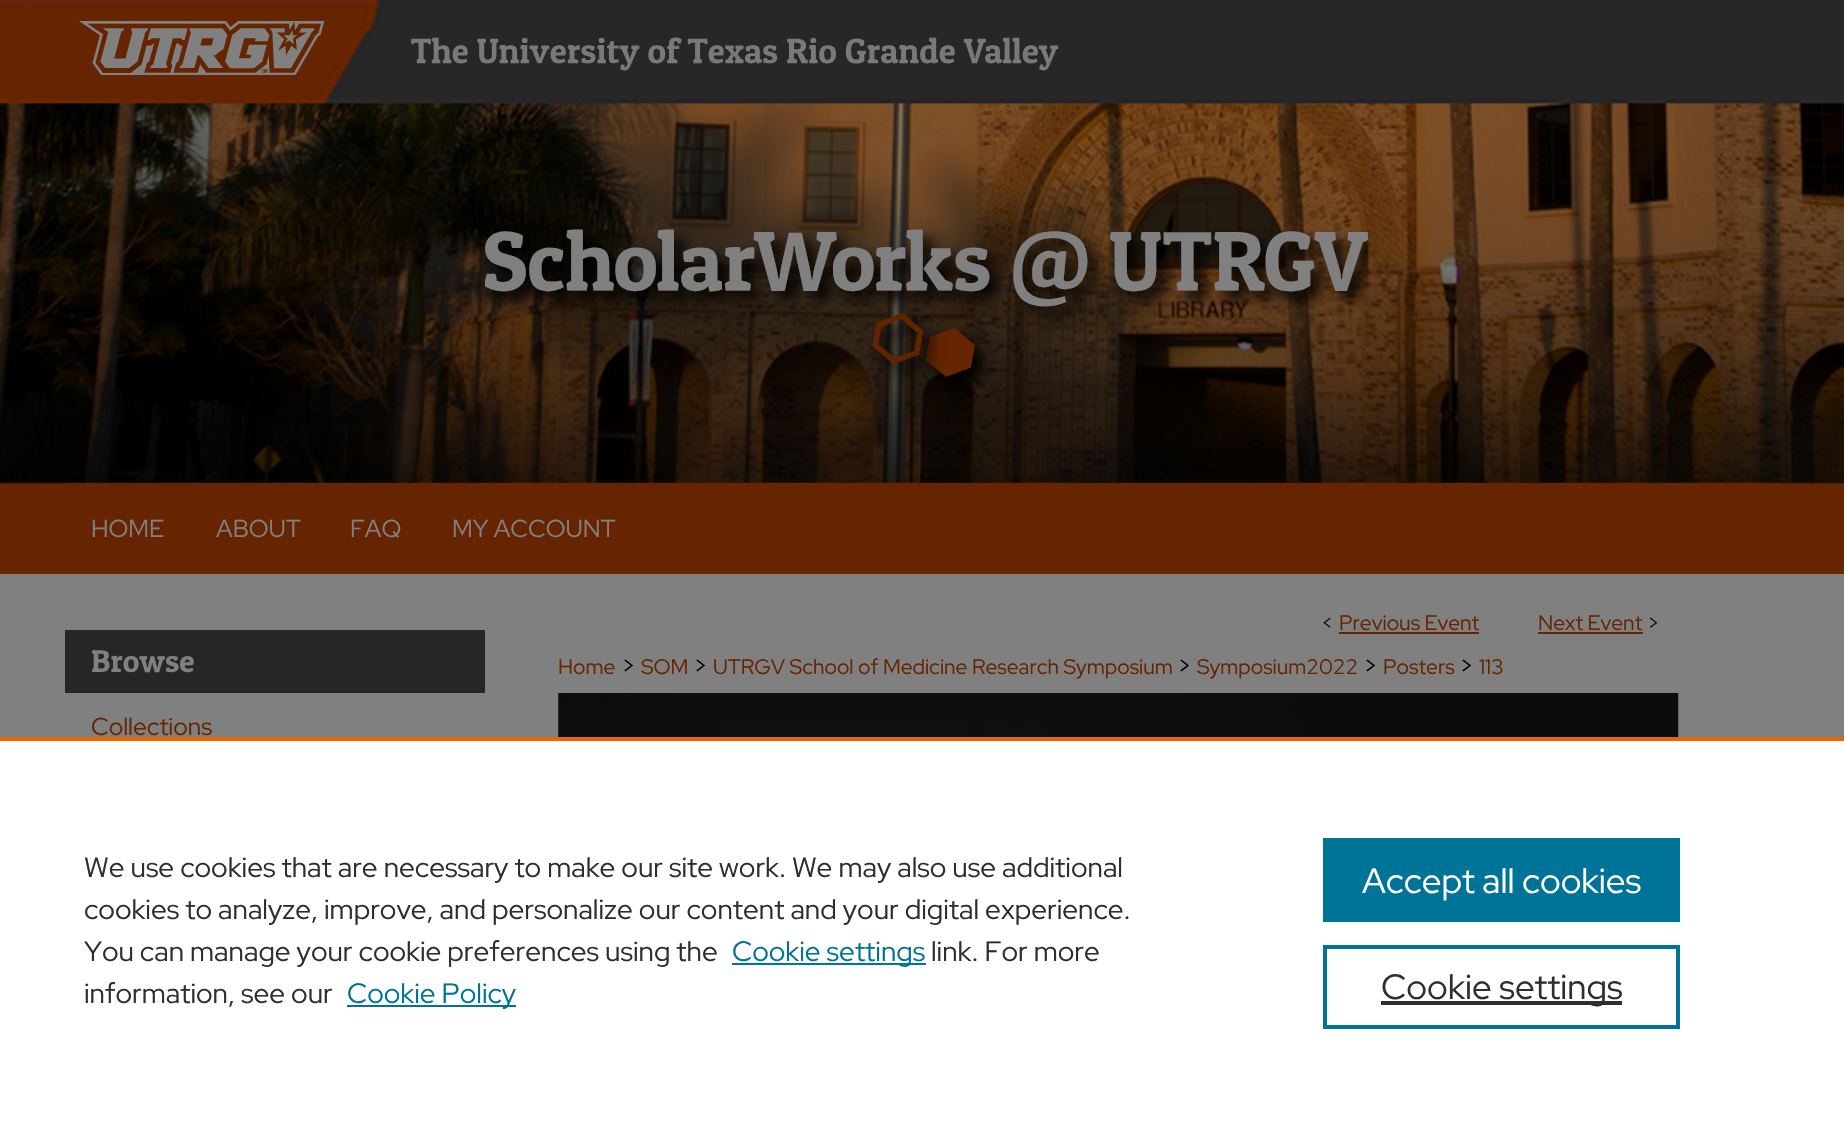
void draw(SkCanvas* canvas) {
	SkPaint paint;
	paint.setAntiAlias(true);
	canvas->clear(0xff808080);
	canvas->drawImageRect(SkImages::DeferredFromEncodedData(SkData::MakeFromFileName("img1.png")), SkRect::MakeXYWH(0, 0, 1844, 574), SkSamplingOptions());
	canvas->drawImageRect(SkImages::DeferredFromEncodedData(SkData::MakeFromFileName("img2.png")), SkRect::MakeXYWH(79, 21, 980, 54), SkSamplingOptions());
	canvas->drawImageRect(SkImages::DeferredFromEncodedData(SkData::MakeFromFileName("img3.png")), SkRect::MakeXYWH(485, 229, 884, 160), SkSamplingOptions());
	paint.setColor(0xff662500);
	canvas->drawRect(SkRect::MakeXYWH(65, 483, 1715, 1), paint);
	SkFont f1(fontMgr->matchFamilyStyle("Red Hat Display", SkFontStyle::Normal()), 24.5);
	f1.setSubpixel(true);
	paint.setColor(0xff808080);
	canvas->drawString("HOME", 91, 537, f1, paint);
	canvas->drawString("ABOUT", 216, 537, f1, paint);
	canvas->drawString("FAQ", 350, 537, f1, paint);
	canvas->drawString("MY ACCOUNT", 452, 537, f1, paint);
	paint.setColor(0xff262528);
	canvas->drawRect(SkRect::MakeXYWH(65, 630, 420, 63), paint);
	SkFont f2(fontMgr->matchFamilyStyle("Patua One", SkFontStyle::Normal()), 31.5);
	f2.setSubpixel(true);
	paint.setColor(0xff808080);
	canvas->drawString("Browse", 91, 672, f2, paint);
	paint.setColor(0xff662500);
	canvas->drawString("Collections", 91, 735, f1, paint);
	SkFont f3(fontMgr->matchFamilyStyle("Red Hat Display", SkFontStyle::Normal()), 21);
	f3.setSubpixel(true);
	paint.setColor(0xff111111);
	canvas->drawString("<", 1321, 630, f3, paint);
	paint.setColor(0xff662500);
	canvas->drawString("Previous Event", 1339, 630, f3, paint);
	canvas->drawRect(SkRect::MakeXYWH(1339, 632, 140, 2), paint);
	canvas->drawString("Next Event", 1538, 630, f3, paint);
	canvas->drawRect(SkRect::MakeXYWH(1538, 632, 105, 2), paint);
	paint.setColor(0xff111111);
	canvas->drawString(">", 1647, 630, f3, paint);
	paint.setColor(0xff662500);
	canvas->drawString("Home", 558, 674, f3, paint);
	paint.setColor(0xff000000);
	canvas->drawString(">", 621, 674, f1, paint);
	paint.setColor(0xff662500);
	canvas->drawString("SOM", 641, 674, f3, paint);
	paint.setColor(0xff000000);
	canvas->drawString(">", 693, 674, f1, paint);
	paint.setColor(0xff662500);
	canvas->drawString("UTRGV School of Medicine Research Symposium", 713, 674, f3, paint);
	paint.setColor(0xff000000);
	canvas->drawString(">", 1177, 674, f1, paint);
	paint.setColor(0xff662500);
	canvas->drawString("Symposium2022", 1197, 674, f3, paint);
	paint.setColor(0xff000000);
	canvas->drawString(">", 1363, 674, f1, paint);
	paint.setColor(0xff662500);
	canvas->drawString("Posters", 1383, 674, f3, paint);
	paint.setColor(0xff000000);
	canvas->drawString(">", 1459, 674, f1, paint);
	paint.setColor(0xff662500);
	canvas->drawString("113", 1479, 674, f3, paint);
	canvas->drawImageRect(SkImages::DeferredFromEncodedData(SkData::MakeFromFileName("img4.png")), SkRect::MakeXYWH(558, 693, 1121, 44), SkSamplingOptions());
	paint.setColor(0xffffffff);
	canvas->drawRect(SkRect::MakeXYWH(0, 741, 1844, 380), paint);
	paint.setColor(0xffeb6500);
	canvas->drawRect(SkRect::MakeXYWH(0, 737, 1844, 4), paint);
	SkFont f4(fontMgr->matchFamilyStyle("Red Hat Display", SkFontStyle::Normal()), 28);
	f4.setSubpixel(true);
	paint.setColor(0xff2e2e2e);
	canvas->drawString("We use cookies that are necessary to make our site work. We may also use additional", 84, 877, f4, paint);
	canvas->drawString("cookies to analyze, improve, and personalize our content and your digital experience.", 84, 919, f4, paint);
	canvas->drawString("You can manage your cookie preferences using the", 84, 961, f4, paint);
	paint.setColor(0xff007398);
	canvas->drawRect(SkRect::MakeXYWH(732, 963, 194, 2), paint);
	canvas->drawString("Cookie settings", 732, 961, f4, paint);
	paint.setColor(0xff2e2e2e);
	canvas->drawString("link. For more", 931, 961, f4, paint);
	canvas->drawString("information, see our", 84, 1003, f4, paint);
	paint.setColor(0xff007398);
	canvas->drawRect(SkRect::MakeXYWH(347, 1005, 169, 2), paint);
	canvas->drawString("Cookie Policy", 347, 1003, f4, paint);
	canvas->drawRect(SkRect::MakeXYWH(1323, 838, 357, 84), paint);
	SkFont f5(fontMgr->matchFamilyStyle("Red Hat Display", SkFontStyle::Normal()), 35);
	f5.setSubpixel(true);
	paint.setColor(0xffffffff);
	canvas->drawString("Accept all cookies", 1362, 893, f5, paint);
	paint.setStroke(true);
	paint.setStrokeWidth(4);
	paint.setColor(0xff007398);
	canvas->drawRect(SkRect::MakeXYWH(1325, 947, 353, 80), paint);
	paint.setStroke(false);
	paint.setColor(0xff2e2e2e);
	canvas->drawRect(SkRect::MakeXYWH(1381, 1001, 241, 4), paint);
	canvas->drawString("Cookie settings", 1381, 999, f5, paint);
}
